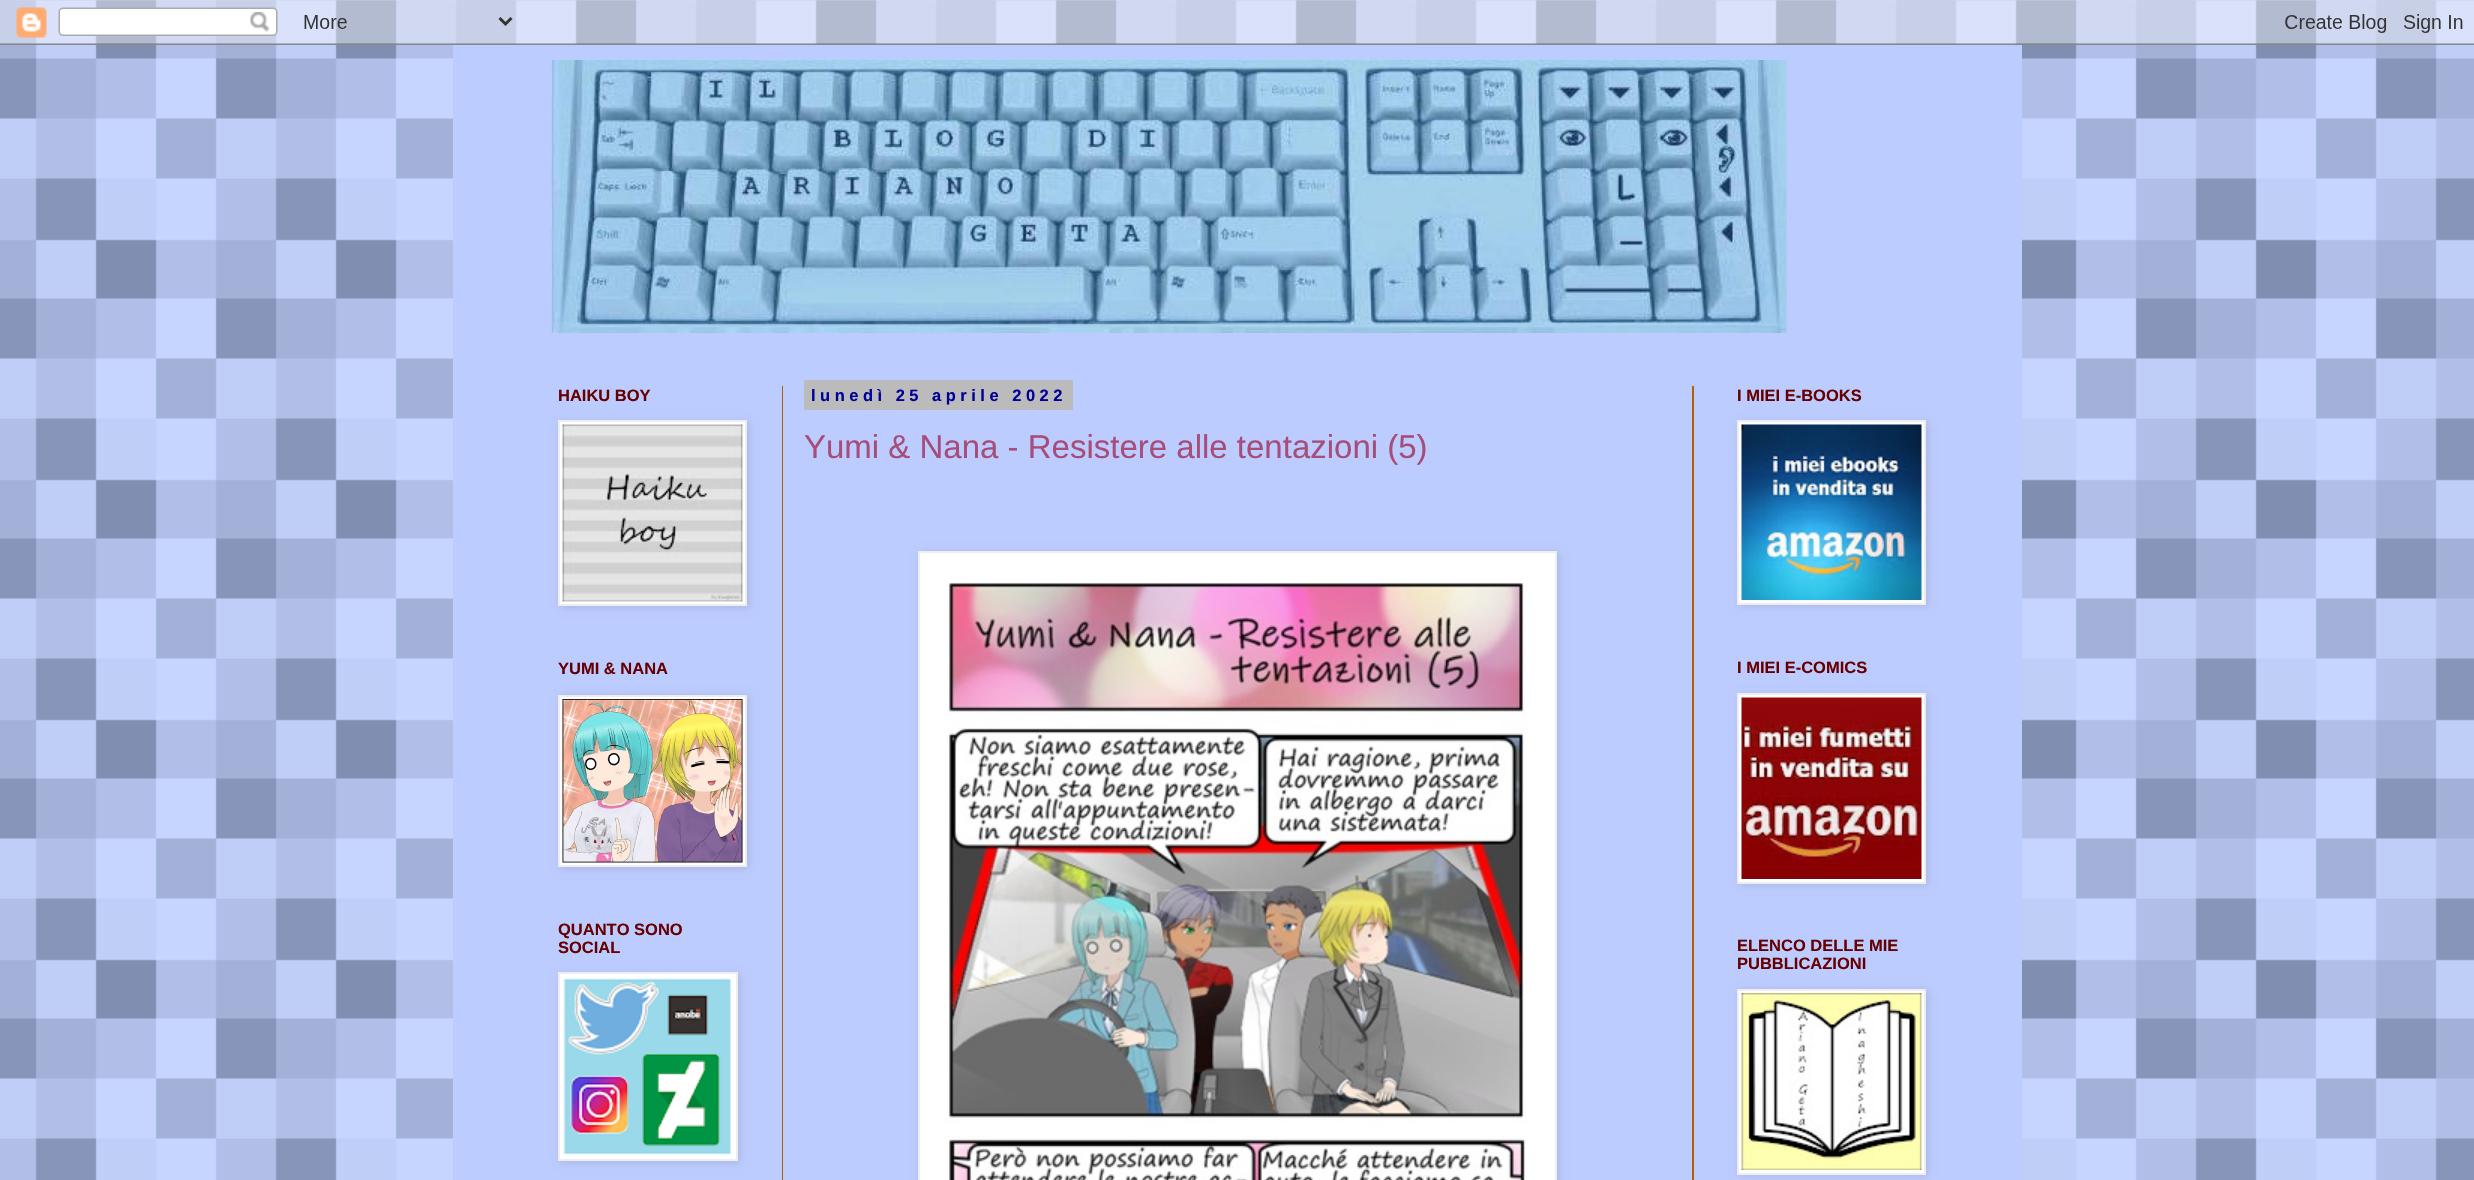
void draw(SkCanvas* canvas) {
	SkPaint paint;
	paint.setAntiAlias(true);
	auto spacedText = [&](const char* s, float x, float y, const SkFont& font, const SkPaint& ink, float letter, float word) {
		std::vector<SkGlyphID> glyphs(font.countText(s, strlen(s), SkTextEncoding::kUTF8));
		std::vector<float> xs(glyphs.size());
		font.textToGlyphs(s, strlen(s), SkTextEncoding::kUTF8, glyphs);
		font.getXPos(glyphs, xs, x);
		float extra = 0;
		for (size_t i = 0; i < glyphs.size(); i++) {
			xs[i] += extra;
			extra += letter + word * (glyphs[i] == font.unicharToGlyph(' '));
		}
		canvas->drawTextBlob(SkTextBlob::MakeFromPosHGlyphs(glyphs, xs, y, font), 0, 0, ink);
	};
	canvas->clear(0xffb8cbff);
	canvas->drawImageRect(SkImages::DeferredFromEncodedData(SkData::MakeFromFileName("img1.png")), SkRect::MakeXYWH(0, 0, 2474, 1180), SkSamplingOptions());
	canvas->drawImageRect(SkImages::DeferredFromEncodedData(SkData::MakeFromFileName("img2.png")), SkRect::MakeXYWH(0, 0, 2474, 45), SkSamplingOptions());
	paint.setColor(0xffbdccff);
	canvas->drawRect(SkRect::MakeXYWH(453, 45, 1569, 1135), paint);
	canvas->drawImageRect(SkImages::DeferredFromEncodedData(SkData::MakeFromFileName("img3.png")), SkRect::MakeXYWH(550, 60, 1237, 273), SkSamplingOptions());
	paint.setColor(0xffb45f06);
	canvas->drawRect(SkRect::MakeXYWH(782, 386, 1, 794), paint);
	canvas->drawRect(SkRect::MakeXYWH(1692, 386, 2, 794), paint);
	SkFont f1(fontMgr->matchFamilyStyle("Liberation Sans", SkFontStyle::Bold()), 16.5);
	f1.setSubpixel(true);
	paint.setColor(0xff660000);
	canvas->drawString("HAIKU BOY", 558, 401, f1, paint);
	paint.setColor(0x1a000000);
	paint.setMaskFilter(SkMaskFilter::MakeBlur(kNormal_SkBlurStyle, 4));
	canvas->drawRect(SkRect::MakeXYWH(560, 422, 189, 186), paint);
	paint.setMaskFilter(nullptr);
	paint.setColor(0xffffffff);
	canvas->drawRect(SkRect::MakeXYWH(559, 421, 187, 184), paint);
	paint.setStroke(true);
	paint.setStrokeWidth(2);
	paint.setColor(0xffeeeeee);
	canvas->drawRect(SkRect::MakeXYWH(559, 421, 187, 184), paint);
	canvas->drawImageRect(SkImages::DeferredFromEncodedData(SkData::MakeFromFileName("img4.png")), SkRect::MakeXYWH(562, 424, 181, 178), SkSamplingOptions());
	paint.setStroke(false);
	paint.setColor(0xff660000);
	canvas->drawString("YUMI & NANA", 558, 674, f1, paint);
	paint.setColor(0x1a000000);
	paint.setMaskFilter(SkMaskFilter::MakeBlur(kNormal_SkBlurStyle, 4));
	canvas->drawRect(SkRect::MakeXYWH(560, 696, 189, 173), paint);
	paint.setMaskFilter(nullptr);
	paint.setColor(0xffffffff);
	canvas->drawRect(SkRect::MakeXYWH(559, 696, 187, 170), paint);
	paint.setStroke(true);
	paint.setColor(0xffeeeeee);
	canvas->drawRect(SkRect::MakeXYWH(559, 696, 187, 170), paint);
	canvas->drawImageRect(SkImages::DeferredFromEncodedData(SkData::MakeFromFileName("img5.png")), SkRect::MakeXYWH(562, 699, 181, 164), SkSamplingOptions());
	paint.setStroke(false);
	paint.setColor(0xff660000);
	canvas->drawString("QUANTO SONO", 558, 935, f1, paint);
	canvas->drawString("SOCIAL", 558, 953, f1, paint);
	paint.setColor(0x1a000000);
	paint.setMaskFilter(SkMaskFilter::MakeBlur(kNormal_SkBlurStyle, 4));
	canvas->drawRect(SkRect::MakeXYWH(560, 974, 180, 189), paint);
	paint.setMaskFilter(nullptr);
	paint.setColor(0xffffffff);
	canvas->drawRect(SkRect::MakeXYWH(559, 973, 178, 187), paint);
	paint.setStroke(true);
	paint.setColor(0xffeeeeee);
	canvas->drawRect(SkRect::MakeXYWH(559, 973, 178, 187), paint);
	canvas->drawImageRect(SkImages::DeferredFromEncodedData(SkData::MakeFromFileName("img6.png")), SkRect::MakeXYWH(563, 978, 168, 177), SkSamplingOptions());
	paint.setStroke(false);
	paint.setColor(0xffbbbbbb);
	canvas->drawRect(SkRect::MakeXYWH(804, 380, 269, 30), paint);
	paint.setColor(0xff000099);
	spacedText("lunedì 25 aprile 2022", 811, 401, f1, paint, 4.5, 0);
	SkFont f2(fontMgr->matchFamilyStyle("Liberation Sans", SkFontStyle::Normal()), 33);
	f2.setSubpixel(true);
	paint.setColor(0xffa64d79);
	canvas->drawString("Yumi & Nana - Resistere alle tentazioni (5)", 804, 458, f2, paint);
	paint.setColor(0x1a000000);
	paint.setMaskFilter(SkMaskFilter::MakeBlur(kNormal_SkBlurStyle, 4));
	canvas->drawRect(SkRect::MakeXYWH(920, 552, 639, 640), paint);
	paint.setMaskFilter(nullptr);
	paint.setColor(0xffffffff);
	canvas->drawRect(SkRect::MakeXYWH(919, 552, 637, 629), paint);
	paint.setStroke(true);
	paint.setColor(0xffeeeeee);
	canvas->drawRect(SkRect::MakeXYWH(919, 552, 637, 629), paint);
	canvas->drawImageRect(SkImages::DeferredFromEncodedData(SkData::MakeFromFileName("img7.png")), SkRect::MakeXYWH(944, 582, 583, 598), SkSamplingOptions());
	paint.setStroke(false);
	paint.setColor(0xff660000);
	canvas->drawString("I MIEI E-BOOKS", 1737, 401, f1, paint);
	paint.setColor(0x1a000000);
	paint.setMaskFilter(SkMaskFilter::MakeBlur(kNormal_SkBlurStyle, 4));
	canvas->drawRect(SkRect::MakeXYWH(1739, 422, 189, 184), paint);
	paint.setMaskFilter(nullptr);
	paint.setColor(0xffffffff);
	canvas->drawRect(SkRect::MakeXYWH(1738, 421, 187, 183), paint);
	paint.setStroke(true);
	paint.setColor(0xffeeeeee);
	canvas->drawRect(SkRect::MakeXYWH(1738, 421, 187, 183), paint);
	canvas->drawImageRect(SkImages::DeferredFromEncodedData(SkData::MakeFromFileName("img8.png")), SkRect::MakeXYWH(1741, 424, 181, 176), SkSamplingOptions());
	paint.setStroke(false);
	paint.setColor(0xff660000);
	canvas->drawString("I MIEI E-COMICS", 1737, 673, f1, paint);
	paint.setColor(0x1a000000);
	paint.setMaskFilter(SkMaskFilter::MakeBlur(kNormal_SkBlurStyle, 4));
	canvas->drawRect(SkRect::MakeXYWH(1739, 695, 189, 190), paint);
	paint.setMaskFilter(nullptr);
	paint.setColor(0xffffffff);
	canvas->drawRect(SkRect::MakeXYWH(1738, 694, 187, 189), paint);
	paint.setStroke(true);
	paint.setColor(0xffeeeeee);
	canvas->drawRect(SkRect::MakeXYWH(1738, 694, 187, 189), paint);
	canvas->drawImageRect(SkImages::DeferredFromEncodedData(SkData::MakeFromFileName("img9.png")), SkRect::MakeXYWH(1741, 697, 181, 182), SkSamplingOptions());
	paint.setStroke(false);
	paint.setColor(0xff660000);
	canvas->drawString("ELENCO DELLE MIE", 1737, 951, f1, paint);
	canvas->drawString("PUBBLICAZIONI", 1737, 969, f1, paint);
	paint.setColor(0x1a000000);
	paint.setMaskFilter(SkMaskFilter::MakeBlur(kNormal_SkBlurStyle, 4));
	canvas->drawRect(SkRect::MakeXYWH(1739, 990, 189, 186), paint);
	paint.setMaskFilter(nullptr);
	paint.setColor(0xffffffff);
	canvas->drawRect(SkRect::MakeXYWH(1738, 990, 187, 184), paint);
	paint.setStroke(true);
	paint.setColor(0xffeeeeee);
	canvas->drawRect(SkRect::MakeXYWH(1738, 990, 187, 184), paint);
	canvas->drawImageRect(SkImages::DeferredFromEncodedData(SkData::MakeFromFileName("img10.png")), SkRect::MakeXYWH(1741, 993, 181, 177), SkSamplingOptions());
}
